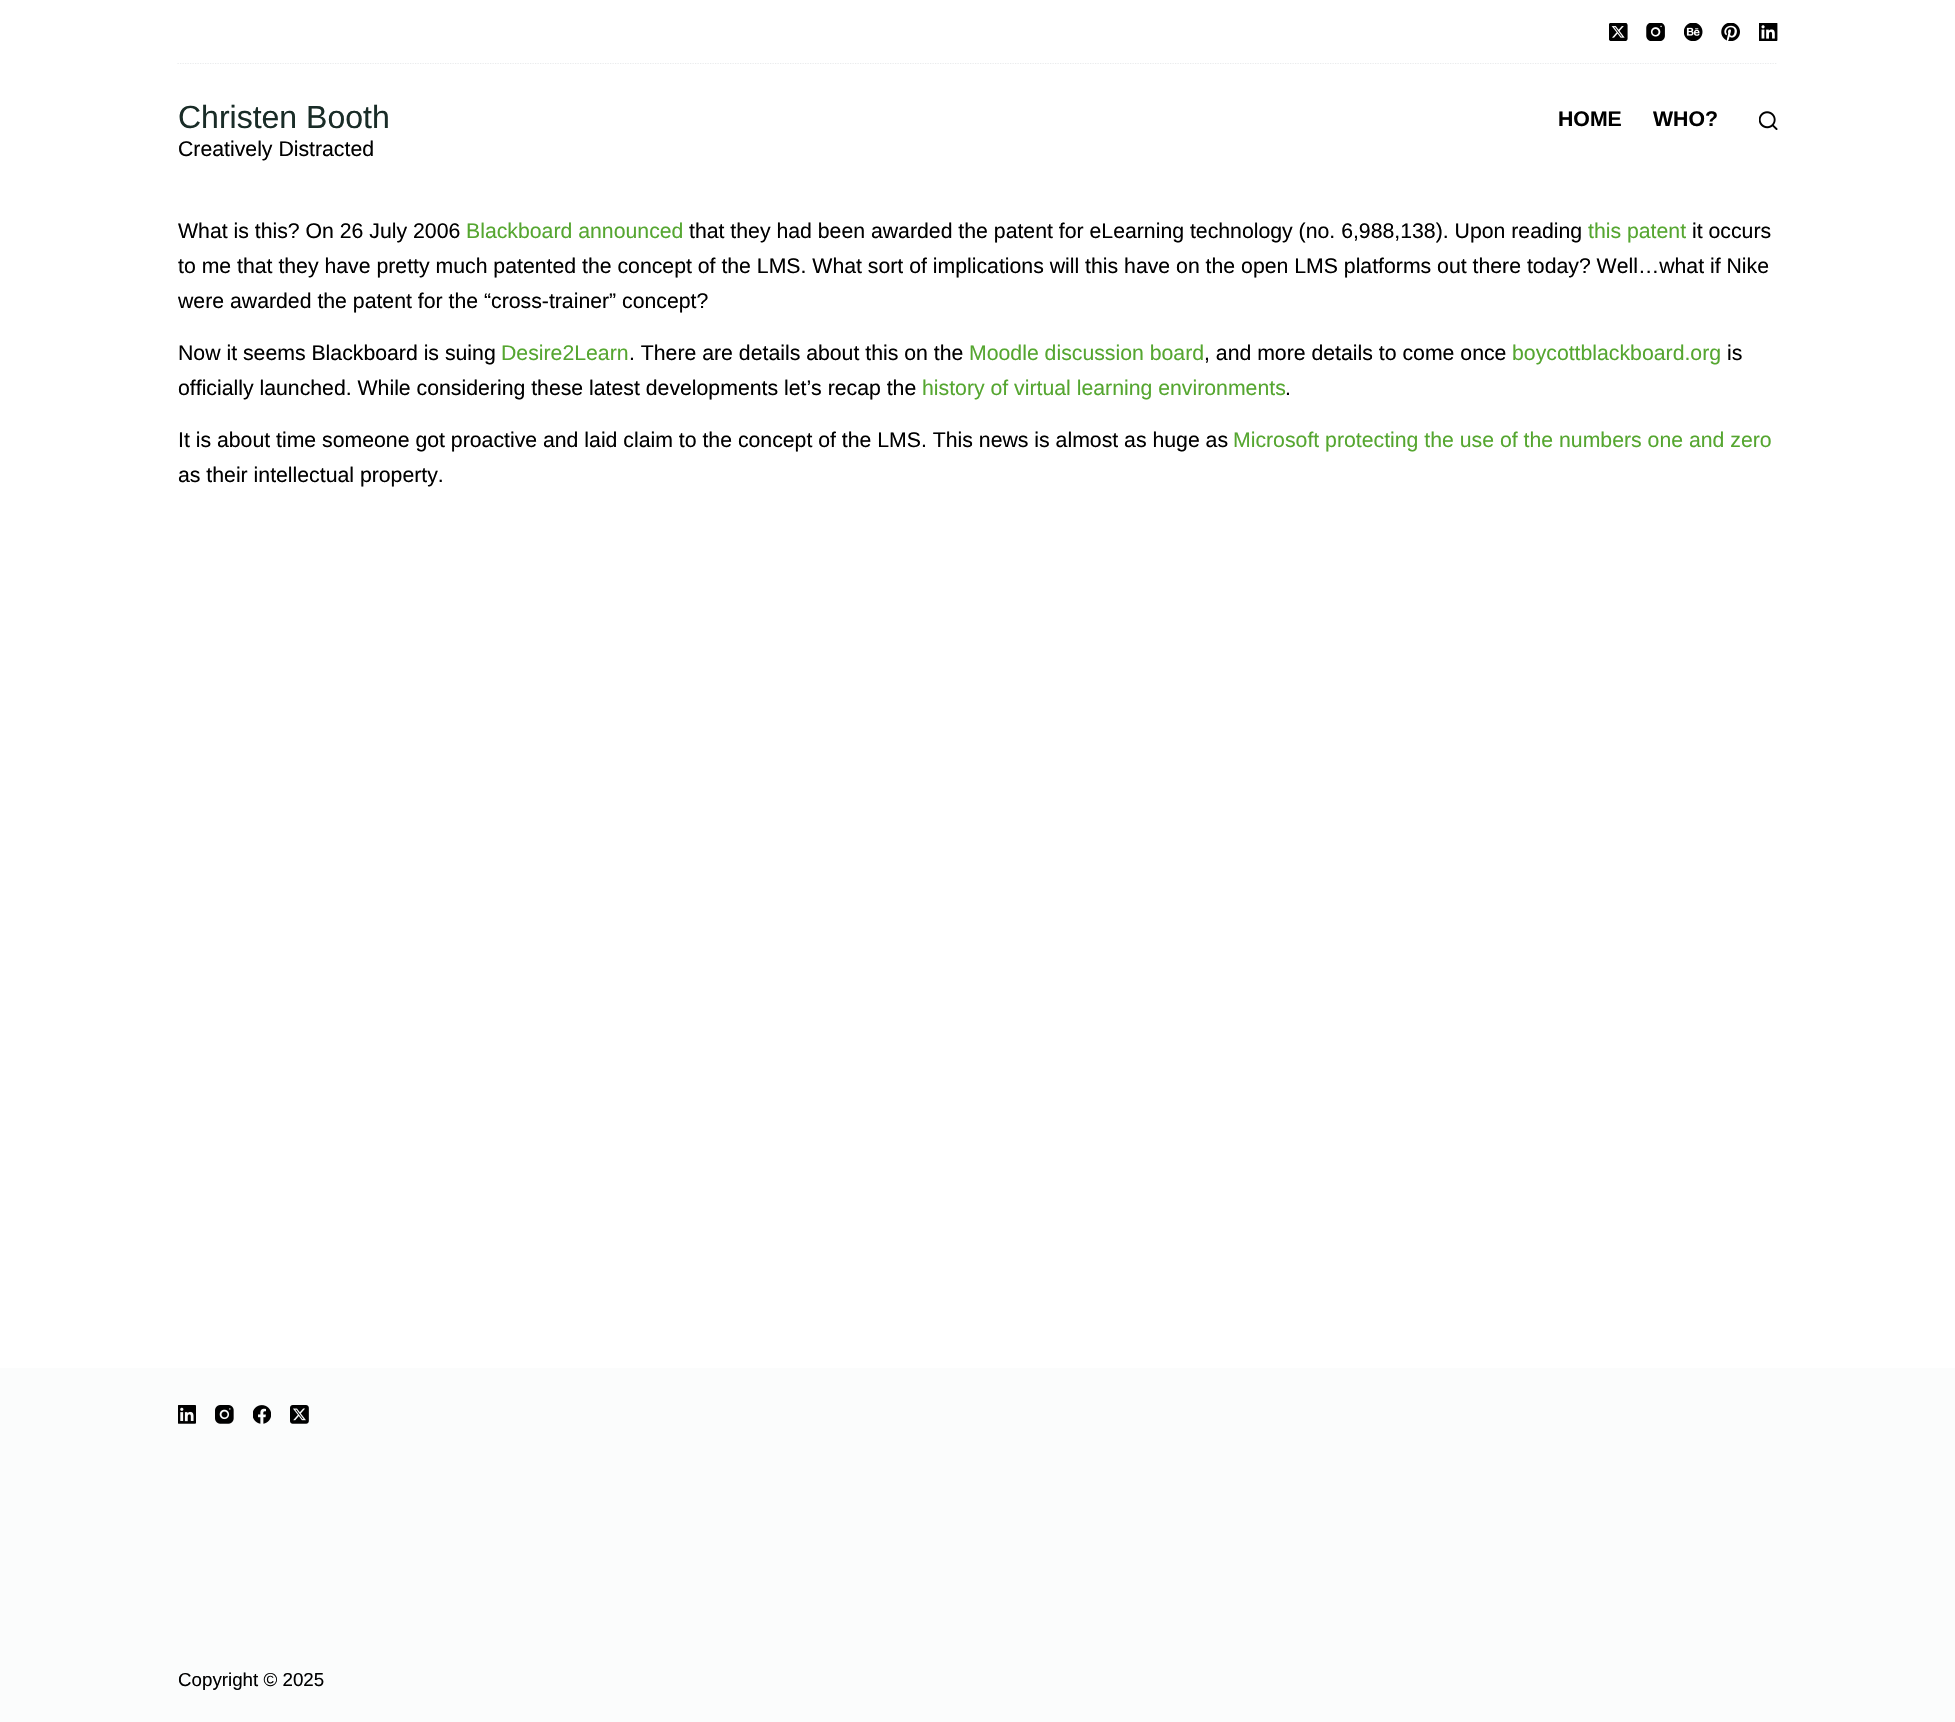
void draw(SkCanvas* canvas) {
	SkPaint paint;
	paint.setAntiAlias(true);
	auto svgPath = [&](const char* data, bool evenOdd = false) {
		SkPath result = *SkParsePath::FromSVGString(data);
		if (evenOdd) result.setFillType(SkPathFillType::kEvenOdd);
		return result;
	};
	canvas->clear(0xffffffff);
	paint.setStroke(true);
	paint.setStrokeWidth(1.2);
	paint.setColor(0xffd5d8dc);
	paint.setPathEffect(SkDashPathEffect::Make({{1.25f, 1.25f}}, 0));
	canvas->drawPath(svgPath("M177.5 63H1777.5"), paint);
	paint.setPathEffect(nullptr);
	paint.setStroke(false);
	paint.setColor(0xffffffff);
	canvas->drawRect(SkRect::MakeXYWH(177, 62, 1600, 1), paint);
	canvas->drawImageRect(SkImages::DeferredFromEncodedData(SkData::MakeFromFileName("img1.png")), SkRect::MakeXYWH(1609, 23, 19, 18), SkSamplingOptions());
	canvas->drawImageRect(SkImages::DeferredFromEncodedData(SkData::MakeFromFileName("img2.png")), SkRect::MakeXYWH(1646, 23, 19, 18), SkSamplingOptions());
	canvas->drawImageRect(SkImages::DeferredFromEncodedData(SkData::MakeFromFileName("img3.png")), SkRect::MakeXYWH(1684, 23, 19, 18), SkSamplingOptions());
	canvas->drawImageRect(SkImages::DeferredFromEncodedData(SkData::MakeFromFileName("img4.png")), SkRect::MakeXYWH(1721, 23, 19, 18), SkSamplingOptions());
	canvas->drawImageRect(SkImages::DeferredFromEncodedData(SkData::MakeFromFileName("img5.png")), SkRect::MakeXYWH(1759, 23, 19, 18), SkSamplingOptions());
	SkFont f1(fontMgr->matchFamilyStyle("Liberation Sans", SkFontStyle::Normal()), 32);
	f1.setSubpixel(true);
	paint.setColor(0xff192c27);
	canvas->drawString("Christen Booth", 178, 128, f1, paint);
	SkFont f2(fontMgr->matchFamilyStyle("Liberation Sans", SkFontStyle::Normal()), 21.25);
	f2.setSubpixel(true);
	paint.setColor(0xff000000);
	canvas->drawString("Creatively Distracted", 178, 156, f2, paint);
	SkFont f3(fontMgr->matchFamilyStyle("Liberation Sans", SkFontStyle::Bold()), 21.25);
	f3.setSubpixel(true);
	canvas->drawString("HOME", 1558, 126, f3, paint);
	canvas->drawString("WHO?", 1653, 126, f3, paint);
	canvas->drawImageRect(SkImages::DeferredFromEncodedData(SkData::MakeFromFileName("img6.png")), SkRect::MakeXYWH(1759, 111, 19, 19), SkSamplingOptions());
	canvas->drawString("What is this? On 26 July 2006", 178, 238, f2, paint);
	paint.setColor(0xff55a630);
	canvas->drawString("Blackboard announced", 466, 238, f2, paint);
	paint.setColor(0xff000000);
	canvas->drawString("that they had been awarded the patent for eLearning technology (no. 6,988,138). Upon reading", 689, 238, f2, paint);
	paint.setColor(0xff55a630);
	canvas->drawString("this patent", 1588, 238, f2, paint);
	paint.setColor(0xff000000);
	canvas->drawString("it occurs", 1692, 238, f2, paint);
	canvas->drawString("to me that they have pretty much patented the concept of the LMS. What sort of implications will this have on the open LMS platforms out there today? Well…what if Nike", 178, 273, f2, paint);
	canvas->drawString("were awarded the patent for the “cross-trainer” concept?", 178, 308, f2, paint);
	canvas->drawString("Now it seems Blackboard is suing", 178, 360, f2, paint);
	paint.setColor(0xff55a630);
	canvas->drawString("Desire2Learn", 501, 360, f2, paint);
	paint.setColor(0xff000000);
	canvas->drawString(". There are details about this on the", 629, 360, f2, paint);
	paint.setColor(0xff55a630);
	canvas->drawString("Moodle discussion board", 969, 360, f2, paint);
	paint.setColor(0xff000000);
	canvas->drawString(", and more details to come once", 1204, 360, f2, paint);
	paint.setColor(0xff55a630);
	canvas->drawString("boycottblackboard.org", 1512, 360, f2, paint);
	paint.setColor(0xff000000);
	canvas->drawString("is", 1727, 360, f2, paint);
	canvas->drawString("officially launched. While considering these latest developments let’s recap the", 178, 395, f2, paint);
	paint.setColor(0xff55a630);
	canvas->drawString("history of virtual learning environments", 922, 395, f2, paint);
	paint.setColor(0xff000000);
	canvas->drawString(".", 1285, 395, f2, paint);
	canvas->drawString("It is about time someone got proactive and laid claim to the concept of the LMS. This news is almost as huge as", 178, 447, f2, paint);
	paint.setColor(0xff55a630);
	canvas->drawString("Microsoft protecting the use of the numbers one and zero", 1233, 447, f2, paint);
	paint.setColor(0xff000000);
	canvas->drawString("as their intellectual property.", 178, 482, f2, paint);
	paint.setColor(0xfffbfcfc);
	canvas->drawRect(SkRect::MakeXYWH(0, 1368, 1955, 354), paint);
	canvas->drawImageRect(SkImages::DeferredFromEncodedData(SkData::MakeFromFileName("img7.png")), SkRect::MakeXYWH(178, 1405, 18, 19), SkSamplingOptions());
	canvas->drawImageRect(SkImages::DeferredFromEncodedData(SkData::MakeFromFileName("img8.png")), SkRect::MakeXYWH(215, 1405, 19, 19), SkSamplingOptions());
	canvas->drawImageRect(SkImages::DeferredFromEncodedData(SkData::MakeFromFileName("img9.png")), SkRect::MakeXYWH(253, 1405, 18, 19), SkSamplingOptions());
	canvas->drawImageRect(SkImages::DeferredFromEncodedData(SkData::MakeFromFileName("img10.png")), SkRect::MakeXYWH(290, 1405, 19, 19), SkSamplingOptions());
	SkFont f4(fontMgr->matchFamilyStyle("Liberation Sans", SkFontStyle::Normal()), 18.75);
	f4.setSubpixel(true);
	paint.setColor(0xff000000);
	canvas->drawString("Copyright © 2025", 178, 1686, f4, paint);
}
